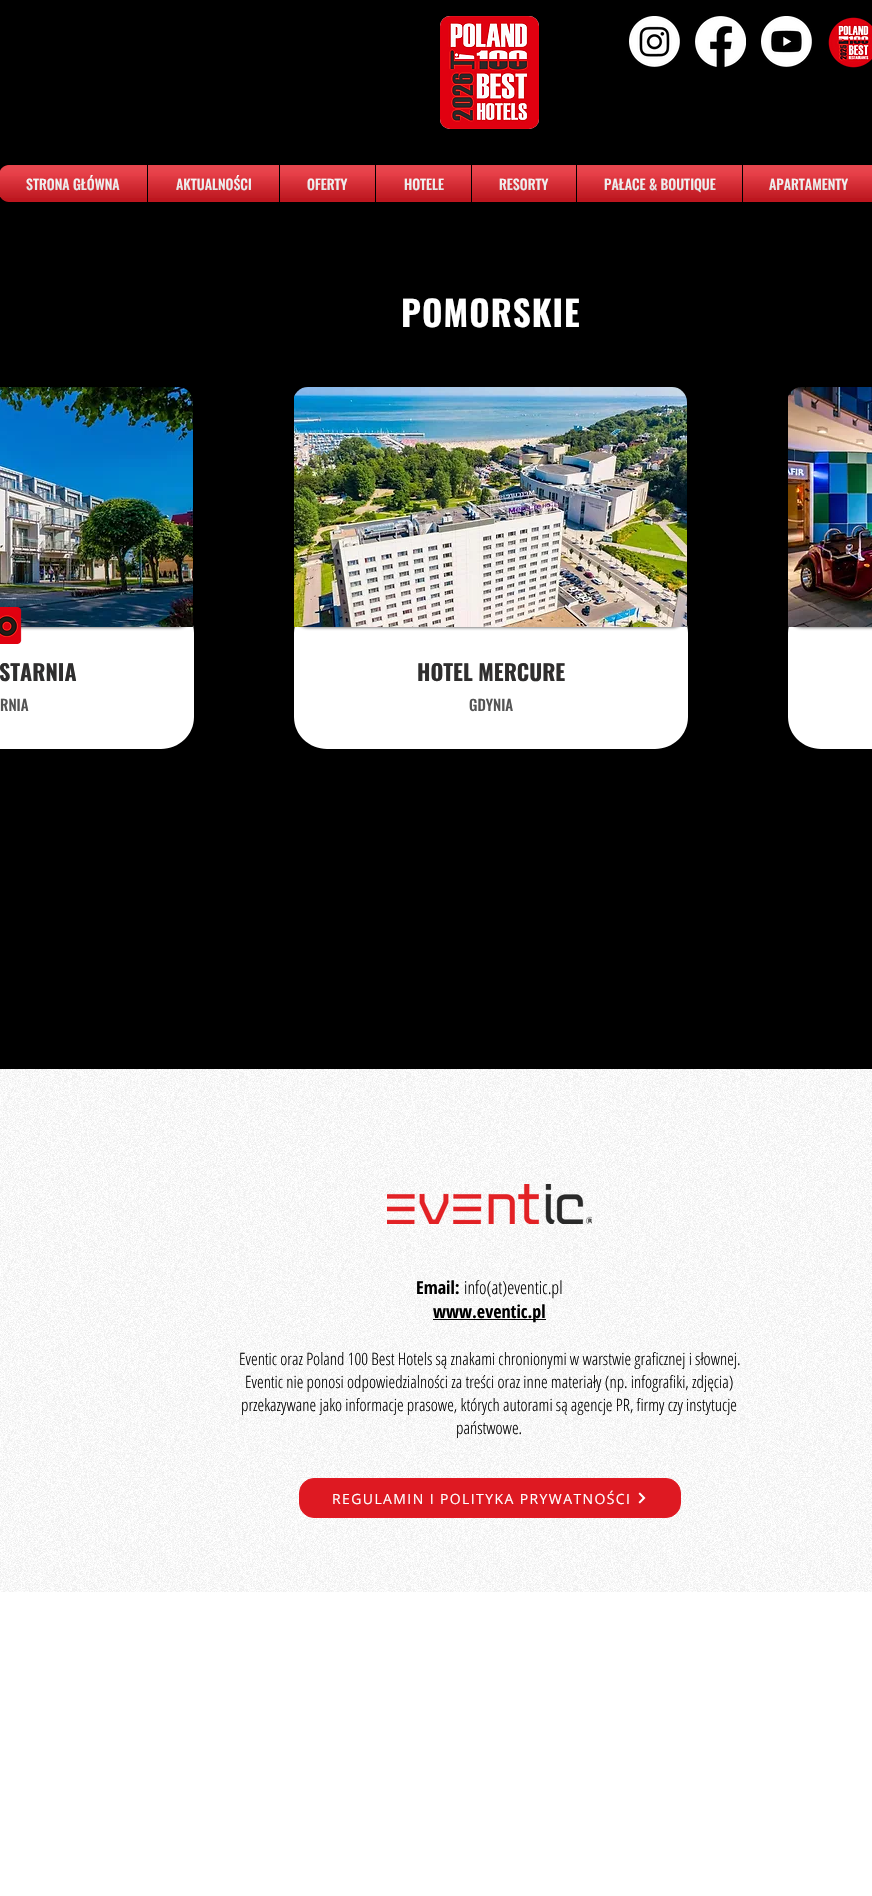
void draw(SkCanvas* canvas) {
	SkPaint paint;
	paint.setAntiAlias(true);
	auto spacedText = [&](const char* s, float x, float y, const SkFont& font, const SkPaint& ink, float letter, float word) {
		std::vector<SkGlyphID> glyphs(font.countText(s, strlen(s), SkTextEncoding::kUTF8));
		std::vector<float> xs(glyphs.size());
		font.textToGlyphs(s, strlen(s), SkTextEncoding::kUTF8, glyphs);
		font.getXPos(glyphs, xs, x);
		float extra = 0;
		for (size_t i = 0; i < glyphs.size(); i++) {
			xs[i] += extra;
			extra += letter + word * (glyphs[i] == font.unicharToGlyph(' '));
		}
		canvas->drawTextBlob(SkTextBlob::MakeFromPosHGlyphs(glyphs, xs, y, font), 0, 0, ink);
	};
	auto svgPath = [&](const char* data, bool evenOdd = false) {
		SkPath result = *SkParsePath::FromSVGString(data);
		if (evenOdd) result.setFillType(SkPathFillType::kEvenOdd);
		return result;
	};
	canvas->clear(0xffffffff);
	paint.setColor(0xff000000);
	canvas->drawRect(SkRect::MakeXYWH(0, 0, 872, 1069), paint);
	paint.setColor(0xffffffff);
	canvas->drawRoundRect(SkRect::MakeXYWH(440, 16, 99, 113), 10, 10, paint);
	canvas->drawImageRect(SkImages::DeferredFromEncodedData(SkData::MakeFromFileName("img1.png")), SkRect::MakeXYWH(440, 16, 99, 113), SkSamplingOptions());
	canvas->drawImageRect(SkImages::DeferredFromEncodedData(SkData::MakeFromFileName("img2.png")), SkRect::MakeXYWH(629, 16, 51, 51), SkSamplingOptions());
	canvas->drawImageRect(SkImages::DeferredFromEncodedData(SkData::MakeFromFileName("img3.png")), SkRect::MakeXYWH(695, 16, 51, 51), SkSamplingOptions());
	canvas->drawImageRect(SkImages::DeferredFromEncodedData(SkData::MakeFromFileName("img4.png")), SkRect::MakeXYWH(761, 16, 51, 51), SkSamplingOptions());
	canvas->drawImageRect(SkImages::DeferredFromEncodedData(SkData::MakeFromFileName("img5.png")), SkRect::MakeXYWH(828, 17, 44, 51), SkSamplingOptions());
	canvas->drawImageRect(SkImages::DeferredFromEncodedData(SkData::MakeFromFileName("img6.png")), SkRect::MakeXYWH(0, 165, 9, 6), SkSamplingOptions());
	canvas->drawImageRect(SkImages::DeferredFromEncodedData(SkData::MakeFromFileName("img7.png")), SkRect::MakeXYWH(0, 196, 9, 6), SkSamplingOptions());
	paint.setColor(0xffe21a24);
	canvas->drawPath(svgPath("M9 165H147V202H9C3.5 202-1 197.5-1 192V175C-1 169.5 3.5 165 9 165Z"), paint);
	SkFont f1(fontMgr->matchFamilyStyle("Oswald", SkFontStyle(500, SkFontStyle::kNormal_Width, SkFontStyle::kUpright_Slant)), 14);
	f1.setSubpixel(true);
	paint.setColor(0xffffffff);
	canvas->drawString("STRONA GŁÓWNA", 26, 190, f1, paint);
	canvas->drawImageRect(SkImages::DeferredFromEncodedData(SkData::MakeFromFileName("img8.png")), SkRect::MakeXYWH(0, 165, 147, 33), SkSamplingOptions());
	canvas->drawImageRect(SkImages::DeferredFromEncodedData(SkData::MakeFromFileName("img9.png")), SkRect::MakeXYWH(0, 176, 147, 26), SkSamplingOptions());
	paint.setColor(0xffe21a24);
	canvas->drawRect(SkRect::MakeXYWH(148, 165, 131, 37), paint);
	paint.setColor(0xffffffff);
	canvas->drawString("AKTUALNOŚCI", 176, 190, f1, paint);
	canvas->drawImageRect(SkImages::DeferredFromEncodedData(SkData::MakeFromFileName("img10.png")), SkRect::MakeXYWH(148, 165, 131, 33), SkSamplingOptions());
	canvas->drawImageRect(SkImages::DeferredFromEncodedData(SkData::MakeFromFileName("img11.png")), SkRect::MakeXYWH(148, 176, 131, 26), SkSamplingOptions());
	paint.setColor(0xffe21a24);
	canvas->drawRect(SkRect::MakeXYWH(280, 165, 95, 37), paint);
	paint.setColor(0xffffffff);
	canvas->drawString("OFERTY", 307, 190, f1, paint);
	canvas->drawImageRect(SkImages::DeferredFromEncodedData(SkData::MakeFromFileName("img12.png")), SkRect::MakeXYWH(280, 165, 95, 33), SkSamplingOptions());
	canvas->drawImageRect(SkImages::DeferredFromEncodedData(SkData::MakeFromFileName("img13.png")), SkRect::MakeXYWH(280, 176, 95, 26), SkSamplingOptions());
	paint.setColor(0xffe21a24);
	canvas->drawRect(SkRect::MakeXYWH(376, 165, 95, 37), paint);
	paint.setColor(0xffffffff);
	canvas->drawString("HOTELE", 404, 190, f1, paint);
	canvas->drawImageRect(SkImages::DeferredFromEncodedData(SkData::MakeFromFileName("img14.png")), SkRect::MakeXYWH(376, 165, 95, 33), SkSamplingOptions());
	canvas->drawImageRect(SkImages::DeferredFromEncodedData(SkData::MakeFromFileName("img15.png")), SkRect::MakeXYWH(376, 176, 95, 26), SkSamplingOptions());
	paint.setColor(0xffe21a24);
	canvas->drawRect(SkRect::MakeXYWH(472, 165, 104, 37), paint);
	paint.setColor(0xffffffff);
	canvas->drawString("RESORTY", 499, 190, f1, paint);
	canvas->drawImageRect(SkImages::DeferredFromEncodedData(SkData::MakeFromFileName("img16.png")), SkRect::MakeXYWH(472, 165, 104, 33), SkSamplingOptions());
	canvas->drawImageRect(SkImages::DeferredFromEncodedData(SkData::MakeFromFileName("img17.png")), SkRect::MakeXYWH(472, 176, 104, 26), SkSamplingOptions());
	paint.setColor(0xffe21a24);
	canvas->drawRect(SkRect::MakeXYWH(577, 165, 165, 37), paint);
	paint.setColor(0xffffffff);
	canvas->drawString("PAŁACE & BOUTIQUE", 604, 190, f1, paint);
	canvas->drawImageRect(SkImages::DeferredFromEncodedData(SkData::MakeFromFileName("img18.png")), SkRect::MakeXYWH(577, 165, 165, 33), SkSamplingOptions());
	canvas->drawImageRect(SkImages::DeferredFromEncodedData(SkData::MakeFromFileName("img19.png")), SkRect::MakeXYWH(577, 176, 165, 26), SkSamplingOptions());
	paint.setColor(0xffe21a24);
	canvas->drawRect(SkRect::MakeXYWH(743, 165, 129, 37), paint);
	paint.setColor(0xffffffff);
	canvas->drawString("APARTAMENTY", 769, 190, f1, paint);
	canvas->drawImageRect(SkImages::DeferredFromEncodedData(SkData::MakeFromFileName("img20.png")), SkRect::MakeXYWH(743, 165, 129, 33), SkSamplingOptions());
	canvas->drawImageRect(SkImages::DeferredFromEncodedData(SkData::MakeFromFileName("img21.png")), SkRect::MakeXYWH(743, 176, 129, 26), SkSamplingOptions());
	SkFont f2(fontMgr->matchFamilyStyle("Oswald", SkFontStyle::Bold()), 35);
	f2.setSubpixel(true);
	spacedText("POMORSKIE", 401, 327, f2, paint, 1, 0);
	canvas->drawPath(svgPath("M161 749H-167C-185 749-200 735-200 717V633C-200 616-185 601-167 601H161C179 601 194 615 194 633V717C194 735 179 749 161 749Z"), paint);
	canvas->save();
	canvas->clipPath(svgPath("M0 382H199V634H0ZM-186 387H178C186.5 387 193 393.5 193 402V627H-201V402C-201 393.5-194.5 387-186 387Z", true), true);
	paint.setColor(0x80000000);
	paint.setMaskFilter(SkMaskFilter::MakeBlur(kNormal_SkBlurStyle, 1.5));
	canvas->drawRoundRect(SkRect::MakeXYWH(-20, 388, 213, 240), 15, 15, paint);
	paint.setMaskFilter(nullptr);
	canvas->restore();
	canvas->drawImageRect(SkImages::DeferredFromEncodedData(SkData::MakeFromFileName("img22.png")), SkRect::MakeXYWH(0, 387, 193, 240), SkSamplingOptions());
	canvas->drawImageRect(SkImages::DeferredFromEncodedData(SkData::MakeFromFileName("img23.png")), SkRect::MakeXYWH(0, 607, 22, 37), SkSamplingOptions());
	SkFont f3(fontMgr->matchFamilyStyle("Oswald", SkFontStyle::Bold()), 22);
	f3.setSubpixel(true);
	paint.setColor(0xff2f2e2e);
	canvas->drawString("STARNIA", -1, 681, f3, paint);
	SkFont f4(fontMgr->matchFamilyStyle("Oswald", SkFontStyle(500, SkFontStyle::kNormal_Width, SkFontStyle::kUpright_Slant)), 15);
	f4.setSubpixel(true);
	paint.setColor(0xff545454);
	canvas->drawString("RNIA", 0, 711, f4, paint);
	paint.setColor(0xffffffff);
	canvas->drawPath(svgPath("M655 749H327C309 749 294 735 294 717V633C294 616 309 601 327 601H655C673 601 688 615 688 633V717C688 735 673 749 655 749Z"), paint);
	canvas->save();
	canvas->clipRect(SkRect::MakeXYWH(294, 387, 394, 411));
	paint.setColor(0x80000000);
	paint.setMaskFilter(SkMaskFilter::MakeBlur(kNormal_SkBlurStyle, 1.5));
	canvas->drawRoundRect(SkRect::MakeXYWH(293, 388, 394, 240), 15, 15, paint);
	paint.setMaskFilter(nullptr);
	canvas->restore();
	canvas->drawImageRect(SkImages::DeferredFromEncodedData(SkData::MakeFromFileName("img24.png")), SkRect::MakeXYWH(294, 387, 393, 240), SkSamplingOptions());
	paint.setColor(0xff2f2e2e);
	canvas->drawString("HOTEL MERCURE", 417, 681, f3, paint);
	paint.setColor(0xff545454);
	canvas->drawString("GDYNIA", 469, 711, f4, paint);
	paint.setColor(0xffffffff);
	canvas->drawPath(svgPath("M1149 749H821C803 749 788 735 788 717V633C788 616 803 601 821 601H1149C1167 601 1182 615 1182 633V717C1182 735 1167 749 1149 749Z"), paint);
	canvas->save();
	canvas->clipRect(SkRect::MakeXYWH(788, 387, 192, 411));
	paint.setColor(0x80000000);
	paint.setMaskFilter(SkMaskFilter::MakeBlur(kNormal_SkBlurStyle, 1.5));
	canvas->drawRoundRect(SkRect::MakeXYWH(787, 388, 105, 240), 15, 15, paint);
	paint.setMaskFilter(nullptr);
	canvas->restore();
	canvas->drawImageRect(SkImages::DeferredFromEncodedData(SkData::MakeFromFileName("img25.png")), SkRect::MakeXYWH(788, 387, 84, 240), SkSamplingOptions());
	canvas->drawImageRect(SkImages::DeferredFromEncodedData(SkData::MakeFromFileName("img26.png")), SkRect::MakeXYWH(0, 1069, 872, 523), SkSamplingOptions());
	canvas->drawImageRect(SkImages::DeferredFromEncodedData(SkData::MakeFromFileName("img27.png")), SkRect::MakeXYWH(387, 1184, 205, 40), SkSamplingOptions());
	SkFont f5(fontMgr->matchFamilyStyle("Open Sans Condensed", SkFontStyle::Bold()), 18);
	f5.setSubpixel(true);
	paint.setColor(0xff000000);
	canvas->drawString("Email:", 416, 1294, f5, paint);
	SkFont f6(fontMgr->matchFamilyStyle("Open Sans Condensed", SkFontStyle(300, SkFontStyle::kNormal_Width, SkFontStyle::kUpright_Slant)), 18);
	f6.setSubpixel(true);
	canvas->drawString("info(at)eventic.pl", 464, 1294, f6, paint);
	canvas->drawRect(SkRect::MakeXYWH(433, 1319, 113, 1), paint);
	canvas->drawString("www.eventic.pl", 433, 1318, f5, paint);
	SkFont f7(fontMgr->matchFamilyStyle("Open Sans Condensed", SkFontStyle(300, SkFontStyle::kNormal_Width, SkFontStyle::kUpright_Slant)), 17);
	f7.setSubpixel(true);
	canvas->drawString("Eventic oraz Poland 100 Best Hotels są znakami chronionymi w warstwie graficznej i słownej.", 239, 1365, f7, paint);
	canvas->drawString("Eventic nie ponosi odpowiedzialności za treści oraz inne materiały (np. infografiki, zdjęcia)", 245, 1388, f7, paint);
	canvas->drawString("przekazywane jako informacje prasowe, których autorami są agencje PR, firmy czy instytucje", 241, 1411, f7, paint);
	canvas->drawString("państwowe.", 456, 1434, f7, paint);
	paint.setColor(0xffde1922);
	canvas->drawRoundRect(SkRect::MakeXYWH(299.5, 1478.5, 381, 39), 14.5, 14.5, paint);
	paint.setStroke(true);
	paint.setStrokeWidth(1);
	paint.setColor(0xffe21a24);
	canvas->drawRoundRect(SkRect::MakeXYWH(299.5, 1478.5, 381, 39), 14.5, 14.5, paint);
	SkFont f8(fontMgr->matchFamilyStyle("Open Sans", SkFontStyle::Normal()), 14);
	f8.setSubpixel(true);
	paint.setStroke(false);
	paint.setColor(0xffffffff);
	spacedText("REGULAMIN I POLITYKA PRYWATNOŚCI", 332, 1504, f8, paint, 1.4, 0);
	canvas->drawImageRect(SkImages::DeferredFromEncodedData(SkData::MakeFromFileName("img28.png")), SkRect::MakeXYWH(638, 1492, 8, 12), SkSamplingOptions());
}
